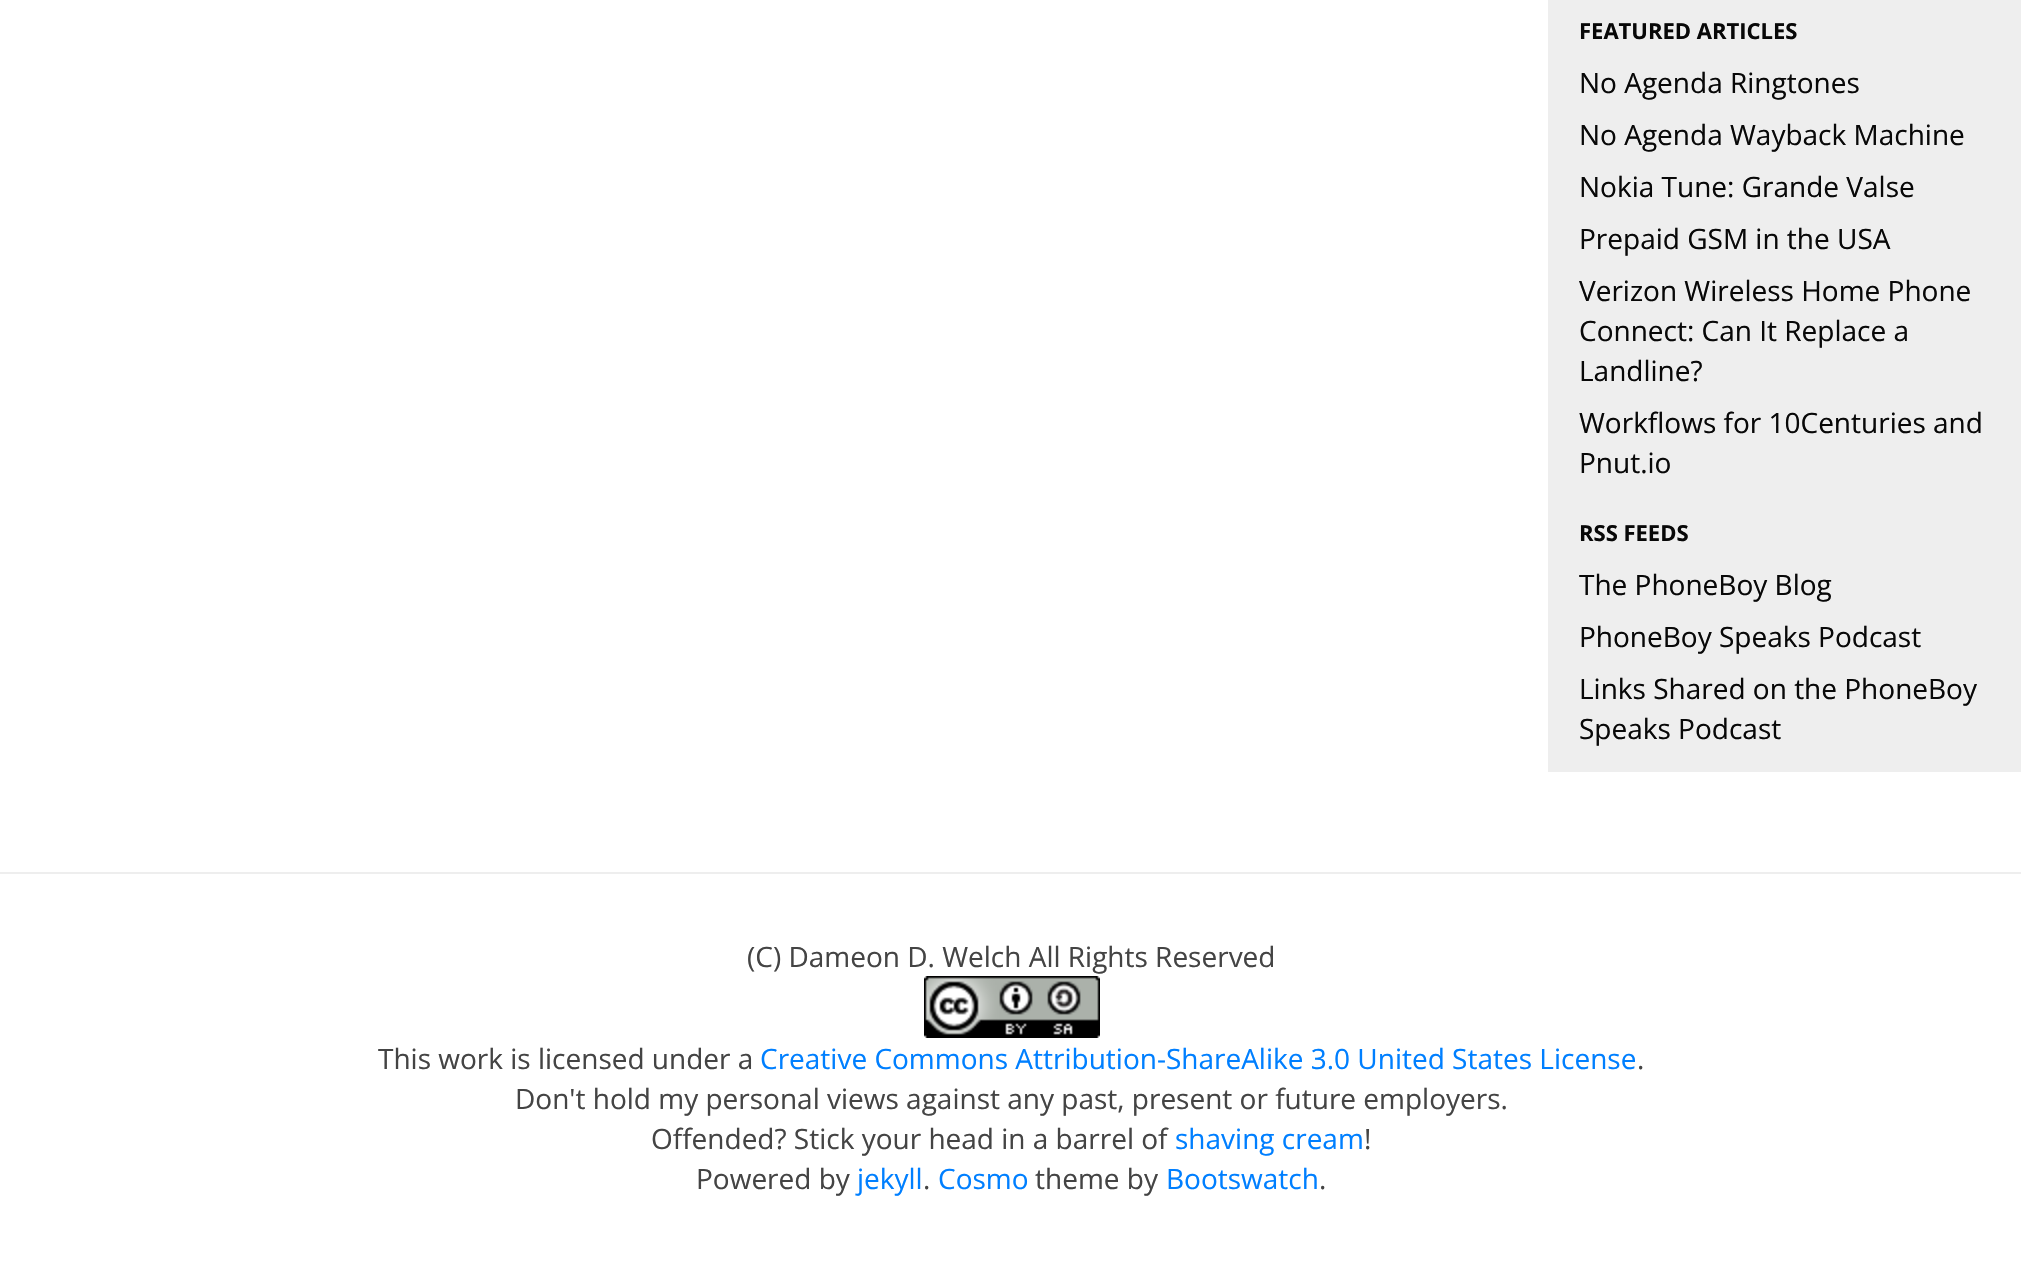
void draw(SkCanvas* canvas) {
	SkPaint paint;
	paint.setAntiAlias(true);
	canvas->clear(0xffffffff);
	paint.setColor(0xffeeeeee);
	canvas->drawRect(SkRect::MakeXYWH(1548, 0, 473, 772), paint);
	SkFont f1(fontMgr->matchFamilyStyle("Open Sans", SkFontStyle::Bold()), 22);
	f1.setSubpixel(true);
	paint.setColor(0xff080808);
	canvas->drawString("FEATURED ARTICLES", 1579, 39, f1, paint);
	SkFont f2(fontMgr->matchFamilyStyle("Open Sans", SkFontStyle::Normal()), 28);
	f2.setSubpixel(true);
	canvas->drawString("No Agenda Ringtones", 1579, 93, f2, paint);
	canvas->drawString("No Agenda Wayback Machine", 1579, 145, f2, paint);
	canvas->drawString("Nokia Tune: Grande Valse", 1579, 197, f2, paint);
	canvas->drawString("Prepaid GSM in the USA", 1579, 249, f2, paint);
	canvas->drawString("Verizon Wireless Home Phone", 1579, 301, f2, paint);
	canvas->drawString("Connect: Can It Replace a", 1579, 341, f2, paint);
	canvas->drawString("Landline?", 1579, 381, f2, paint);
	canvas->drawString("Workflows for 10Centuries and", 1579, 433, f2, paint);
	canvas->drawString("Pnut.io", 1579, 473, f2, paint);
	canvas->drawString("RSS FEEDS", 1579, 541, f1, paint);
	canvas->drawString("The PhoneBoy Blog", 1579, 595, f2, paint);
	canvas->drawString("PhoneBoy Speaks Podcast", 1579, 647, f2, paint);
	canvas->drawString("Links Shared on the PhoneBoy", 1579, 699, f2, paint);
	canvas->drawString("Speaks Podcast", 1579, 739, f2, paint);
	paint.setColor(0xffeeeeee);
	canvas->drawRect(SkRect::MakeXYWH(0, 872, 2021, 2), paint);
	paint.setColor(0xff444444);
	canvas->drawString("(C) Dameon D. Welch All Rights Reserved", 747, 967, f2, paint);
	canvas->drawImageRect(SkImages::DeferredFromEncodedData(SkData::MakeFromFileName("img1.png")), SkRect::MakeXYWH(924, 976, 176, 62), SkSamplingOptions());
	canvas->drawString("This work is licensed under a", 378, 1069, f2, paint);
	paint.setColor(0xff007fff);
	canvas->drawString("Creative Commons Attribution-ShareAlike 3.0 United States License", 760, 1069, f2, paint);
	paint.setColor(0xff444444);
	canvas->drawString(".", 1637, 1069, f2, paint);
	canvas->drawString("Don't hold my personal views against any past, present or future employers.", 515, 1109, f2, paint);
	canvas->drawString("Offended? Stick your head in a barrel of", 651, 1149, f2, paint);
	paint.setColor(0xff007fff);
	canvas->drawString("shaving cream", 1175, 1149, f2, paint);
	paint.setColor(0xff444444);
	canvas->drawString("!", 1364, 1149, f2, paint);
	canvas->drawString("Powered by", 696, 1189, f2, paint);
	paint.setColor(0xff007fff);
	canvas->drawString("jekyll", 857, 1189, f2, paint);
	paint.setColor(0xff444444);
	canvas->drawString(".", 923, 1189, f2, paint);
	paint.setColor(0xff007fff);
	canvas->drawString("Cosmo", 938, 1189, f2, paint);
	paint.setColor(0xff444444);
	canvas->drawString("theme by", 1035, 1189, f2, paint);
	paint.setColor(0xff007fff);
	canvas->drawString("Bootswatch", 1166, 1189, f2, paint);
	paint.setColor(0xff444444);
	canvas->drawString(".", 1319, 1189, f2, paint);
}
